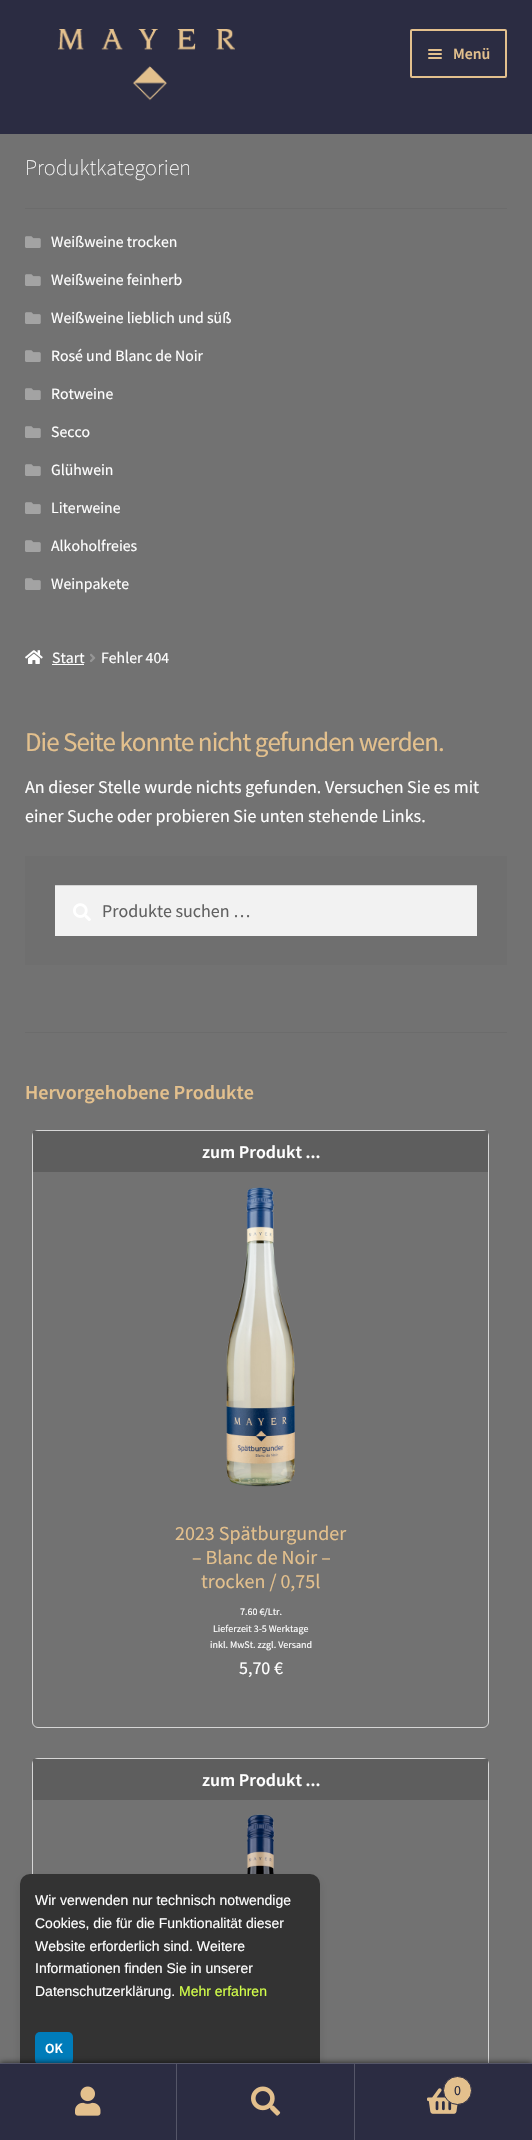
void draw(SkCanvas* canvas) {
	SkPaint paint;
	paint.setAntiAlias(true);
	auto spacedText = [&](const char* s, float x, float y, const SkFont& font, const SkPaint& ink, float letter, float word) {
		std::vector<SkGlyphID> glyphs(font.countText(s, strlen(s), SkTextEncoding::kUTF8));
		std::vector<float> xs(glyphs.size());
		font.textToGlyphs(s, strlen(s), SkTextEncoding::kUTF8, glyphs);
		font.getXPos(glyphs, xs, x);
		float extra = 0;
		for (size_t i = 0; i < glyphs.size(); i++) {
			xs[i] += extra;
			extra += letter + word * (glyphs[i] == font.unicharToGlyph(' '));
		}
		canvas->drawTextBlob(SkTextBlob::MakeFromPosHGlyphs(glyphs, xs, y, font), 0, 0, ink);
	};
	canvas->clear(0xff727272);
	paint.setColor(0xff2b2c42);
	canvas->drawRect(SkRect::MakeXYWH(0, 0, 532, 134), paint);
	canvas->drawImageRect(SkImages::DeferredFromEncodedData(SkData::MakeFromFileName("img1.png")), SkRect::MakeXYWH(58, 29, 177, 72), SkSamplingOptions());
	paint.setStroke(true);
	paint.setStrokeWidth(2);
	paint.setColor(0xffe3c08d);
	canvas->drawRoundRect(SkRect::MakeXYWH(411, 30, 95, 47), 1, 1, paint);
	paint.setStroke(false);
	canvas->drawRoundRect(SkRect::MakeXYWH(428, 49, 14, 2), 1, 1, paint);
	canvas->drawRoundRect(SkRect::MakeXYWH(428, 53, 14, 2), 1, 1, paint);
	SkFont f1(fontMgr->matchFamilyStyle("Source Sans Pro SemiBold", SkFontStyle(600, SkFontStyle::kNormal_Width, SkFontStyle::kUpright_Slant)), 15.75);
	f1.setSubpixel(true);
	canvas->drawString("Menü", 453, 59, f1, paint);
	canvas->drawRoundRect(SkRect::MakeXYWH(428, 57, 14, 2), 1, 1, paint);
	paint.setColor(0xff6c6c6c);
	canvas->drawRect(SkRect::MakeXYWH(25, 208, 482, 1), paint);
	SkFont f2(fontMgr->matchFamilyStyle("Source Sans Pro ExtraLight", SkFontStyle(200, SkFontStyle::kNormal_Width, SkFontStyle::kUpright_Slant)), 22.25);
	f2.setSubpixel(true);
	paint.setColor(0xffffffff);
	canvas->drawString("Produktkategorien", 25, 175, f2, paint);
	canvas->drawImageRect(SkImages::DeferredFromEncodedData(SkData::MakeFromFileName("img2.png")), SkRect::MakeXYWH(25, 236, 16, 12), SkSamplingOptions());
	SkFont f3(fontMgr->matchFamilyStyle("Source Sans Pro", SkFontStyle::Normal()), 15.75);
	f3.setSubpixel(true);
	canvas->drawString("Weißweine trocken", 51, 247, f3, paint);
	canvas->drawImageRect(SkImages::DeferredFromEncodedData(SkData::MakeFromFileName("img2.png")), SkRect::MakeXYWH(25, 274, 16, 12), SkSamplingOptions());
	canvas->drawString("Weißweine feinherb", 51, 285, f3, paint);
	canvas->drawImageRect(SkImages::DeferredFromEncodedData(SkData::MakeFromFileName("img2.png")), SkRect::MakeXYWH(25, 312, 16, 12), SkSamplingOptions());
	canvas->drawString("Weißweine lieblich und süß", 51, 323, f3, paint);
	canvas->drawImageRect(SkImages::DeferredFromEncodedData(SkData::MakeFromFileName("img2.png")), SkRect::MakeXYWH(25, 350, 16, 12), SkSamplingOptions());
	canvas->drawString("Rosé und Blanc de Noir", 51, 361, f3, paint);
	canvas->drawImageRect(SkImages::DeferredFromEncodedData(SkData::MakeFromFileName("img2.png")), SkRect::MakeXYWH(25, 388, 16, 12), SkSamplingOptions());
	canvas->drawString("Rotweine", 51, 399, f3, paint);
	canvas->drawImageRect(SkImages::DeferredFromEncodedData(SkData::MakeFromFileName("img2.png")), SkRect::MakeXYWH(25, 426, 16, 12), SkSamplingOptions());
	canvas->drawString("Secco", 51, 437, f3, paint);
	canvas->drawImageRect(SkImages::DeferredFromEncodedData(SkData::MakeFromFileName("img2.png")), SkRect::MakeXYWH(25, 464, 16, 12), SkSamplingOptions());
	canvas->drawString("Glühwein", 51, 475, f3, paint);
	canvas->drawImageRect(SkImages::DeferredFromEncodedData(SkData::MakeFromFileName("img2.png")), SkRect::MakeXYWH(25, 502, 16, 12), SkSamplingOptions());
	canvas->drawString("Literweine", 51, 513, f3, paint);
	canvas->drawImageRect(SkImages::DeferredFromEncodedData(SkData::MakeFromFileName("img2.png")), SkRect::MakeXYWH(25, 540, 16, 12), SkSamplingOptions());
	canvas->drawString("Alkoholfreies", 51, 551, f3, paint);
	canvas->drawImageRect(SkImages::DeferredFromEncodedData(SkData::MakeFromFileName("img2.png")), SkRect::MakeXYWH(25, 578, 16, 12), SkSamplingOptions());
	canvas->drawString("Weinpakete", 51, 589, f3, paint);
	canvas->drawImageRect(SkImages::DeferredFromEncodedData(SkData::MakeFromFileName("img3.png")), SkRect::MakeXYWH(25, 650, 18, 14), SkSamplingOptions());
	canvas->drawString("Start", 52, 663, f3, paint);
	canvas->drawRect(SkRect::MakeXYWH(52, 664, 32, 1), paint);
	canvas->drawImageRect(SkImages::DeferredFromEncodedData(SkData::MakeFromFileName("img4.png")), SkRect::MakeXYWH(90, 653, 6, 9), SkSamplingOptions());
	canvas->drawString("Fehler 404", 101, 663, f3, paint);
	SkFont f4(fontMgr->matchFamilyStyle("Source Sans Pro", SkFontStyle::Normal()), 27);
	f4.setSubpixel(true);
	paint.setColor(0xffe3c08d);
	spacedText("Die Seite konnte nicht gefunden werden.", 25, 751, f4, paint, -1, 0);
	SkFont f5(fontMgr->matchFamilyStyle("Source Sans Pro", SkFontStyle::Normal()), 18);
	f5.setSubpixel(true);
	paint.setColor(0xffffffff);
	canvas->drawString("An dieser Stelle wurde nichts gefunden. Versuchen Sie es mit", 25, 793, f5, paint);
	canvas->drawString("einer Suche oder probieren Sie unten stehende Links.", 25, 822, f5, paint);
	paint.setColor(0xff6f6f6f);
	canvas->drawRect(SkRect::MakeXYWH(25, 856, 482, 109), paint);
	paint.setColor(0xfff2f2f2);
	canvas->drawRect(SkRect::MakeXYWH(55, 886, 422, 50), paint);
	canvas->drawImageRect(SkImages::DeferredFromEncodedData(SkData::MakeFromFileName("img5.png")), SkRect::MakeXYWH(73, 903, 18, 18), SkSamplingOptions());
	paint.setColor(0xffd4d4d4);
	canvas->drawRect(SkRect::MakeXYWH(55, 885, 422, 1), paint);
	paint.setColor(0xff616161);
	canvas->drawString("Produkte suchen …", 102, 917, f5, paint);
	paint.setColor(0xff6c6c6c);
	canvas->drawRect(SkRect::MakeXYWH(25, 1032, 482, 1), paint);
	SkFont f6(fontMgr->matchFamilyStyle("Source Sans Pro SemiBold", SkFontStyle(600, SkFontStyle::kNormal_Width, SkFontStyle::kUpright_Slant)), 20);
	f6.setSubpixel(true);
	paint.setColor(0xffe3c08d);
	canvas->drawString("Hervorgehobene Produkte", 25, 1099, f6, paint);
	paint.setStroke(true);
	paint.setStrokeWidth(1);
	paint.setColor(0xffd6d6d6);
	canvas->drawRoundRect(SkRect::MakeXYWH(32.5, 1130.5, 456, 597), 5.5, 5.5, paint);
	paint.setStroke(false);
	paint.setColor(0xff5e5e5e);
	canvas->drawRect(SkRect::MakeXYWH(33, 1131, 455, 41), paint);
	SkFont f7(fontMgr->matchFamilyStyle("Source Sans Pro SemiBold", SkFontStyle(600, SkFontStyle::kNormal_Width, SkFontStyle::kUpright_Slant)), 18);
	f7.setSubpixel(true);
	paint.setColor(0xffffffff);
	canvas->drawString("zum Produkt ...", 202, 1158, f7, paint);
	canvas->drawImageRect(SkImages::DeferredFromEncodedData(SkData::MakeFromFileName("img6.png")), SkRect::MakeXYWH(226, 1187, 69, 300), SkSamplingOptions());
	SkFont f8(fontMgr->matchFamilyStyle("Source Sans Pro", SkFontStyle::Normal()), 20);
	f8.setSubpixel(true);
	paint.setColor(0xffe3c08d);
	canvas->drawString("2023 Spätburgunder", 175, 1540, f8, paint);
	canvas->drawString("– Blanc de Noir –", 192, 1564, f8, paint);
	canvas->drawString("trocken / 0,75l", 201, 1588, f8, paint);
	SkFont f9(fontMgr->matchFamilyStyle("Source Sans Pro", SkFontStyle::Normal()), 10);
	f9.setSubpixel(true);
	paint.setColor(0xffffffff);
	canvas->drawString("7.60 €/Ltr.", 240, 1615, f9, paint);
	canvas->drawString("Lieferzeit 3-5 Werktage", 213, 1632, f9, paint);
	canvas->drawString("inkl. MwSt. zzgl. Versand", 210, 1648, f9, paint);
	canvas->drawString("5,70 €", 239, 1674, f5, paint);
	paint.setStroke(true);
	paint.setColor(0xffd6d6d6);
	canvas->drawRoundRect(SkRect::MakeXYWH(32.5, 1758.5, 456, 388), 5.5, 5.5, paint);
	paint.setStroke(false);
	paint.setColor(0xff5e5e5e);
	canvas->drawRect(SkRect::MakeXYWH(33, 1759, 455, 41), paint);
	paint.setColor(0xffffffff);
	canvas->drawString("zum Produkt ...", 202, 1786, f7, paint);
	canvas->drawImageRect(SkImages::DeferredFromEncodedData(SkData::MakeFromFileName("img7.png")), SkRect::MakeXYWH(224, 1814, 71, 60), SkSamplingOptions());
	paint.setColor(0x1a000000);
	paint.setMaskFilter(SkMaskFilter::MakeBlur(kNormal_SkBlurStyle, 4));
	canvas->drawRoundRect(SkRect::MakeXYWH(20, 1878, 300, 206), 10, 10, paint);
	paint.setMaskFilter(nullptr);
	paint.setColor(0xff333333);
	canvas->drawRoundRect(SkRect::MakeXYWH(20, 1874, 300, 206), 10, 10, paint);
	paint.setColor(0xff007cba);
	canvas->drawRoundRect(SkRect::MakeXYWH(35, 2032, 38, 33), 5, 5, paint);
	paint.setColor(0xb3000000);
	paint.setMaskFilter(SkMaskFilter::MakeBlur(kNormal_SkBlurStyle, 3));
	canvas->drawRect(SkRect::MakeXYWH(0, 2063, 532, 77), paint);
	paint.setMaskFilter(nullptr);
	paint.setColor(0xff555668);
	canvas->drawRect(SkRect::MakeXYWH(0, 2063, 532, 1), paint);
	paint.setColor(0xff2b2c42);
	canvas->drawRect(SkRect::MakeXYWH(0, 2064, 176, 76), paint);
	paint.setColor(0xff555668);
	canvas->drawRect(SkRect::MakeXYWH(176, 2064, 1, 76), paint);
	canvas->drawImageRect(SkImages::DeferredFromEncodedData(SkData::MakeFromFileName("img8.png")), SkRect::MakeXYWH(75, 2086, 26, 30), SkSamplingOptions());
	paint.setColor(0xff2b2c42);
	canvas->drawRect(SkRect::MakeXYWH(177, 2064, 177, 76), paint);
	paint.setColor(0xff555668);
	canvas->drawRect(SkRect::MakeXYWH(354, 2064, 1, 76), paint);
	canvas->drawImageRect(SkImages::DeferredFromEncodedData(SkData::MakeFromFileName("img9.png")), SkRect::MakeXYWH(251, 2086, 30, 30), SkSamplingOptions());
	paint.setColor(0xff2b2c42);
	canvas->drawRect(SkRect::MakeXYWH(355, 2064, 177, 76), paint);
	canvas->drawImageRect(SkImages::DeferredFromEncodedData(SkData::MakeFromFileName("img10.png")), SkRect::MakeXYWH(427, 2088, 31, 26), SkSamplingOptions());
	paint.setColor(0xffe3c08d);
	canvas->drawCircle(457.5, 2090.5, 14, paint);
	paint.setStroke(true);
	paint.setColor(0xff2b2c42);
	canvas->drawCircle(457.5, 2090.5, 14, paint);
	SkFont f10(fontMgr->matchFamilyStyle("Source Sans Pro", SkFontStyle::Normal()), 14);
	f10.setSubpixel(true);
	paint.setStroke(false);
	canvas->drawString("0", 454, 2095, f10, paint);
	SkFont f11(fontMgr->matchFamilyStyle("Liberation Sans", SkFontStyle::Normal()), 14);
	f11.setSubpixel(true);
	paint.setColor(0xffffffff);
	canvas->drawString("Wir verwenden nur technisch notwendige", 35, 1905, f11, paint);
	canvas->drawString("Cookies, die für die Funktionalität dieser", 35, 1928, f11, paint);
	canvas->drawString("Website erforderlich sind. Weitere", 35, 1951, f11, paint);
	canvas->drawString("Informationen finden Sie in unserer", 35, 1973, f11, paint);
	canvas->drawString("Datenschutzerklärung.", 35, 1996, f11, paint);
	paint.setColor(0xffd3ff4a);
	canvas->drawString("Mehr erfahren", 179, 1996, f11, paint);
	SkFont f12(fontMgr->matchFamilyStyle("Source Sans Pro SemiBold", SkFontStyle(600, SkFontStyle::kNormal_Width, SkFontStyle::kUpright_Slant)), 14);
	f12.setSubpixel(true);
	paint.setColor(0xffffffff);
	canvas->drawString("OK", 45, 2053, f12, paint);
}
